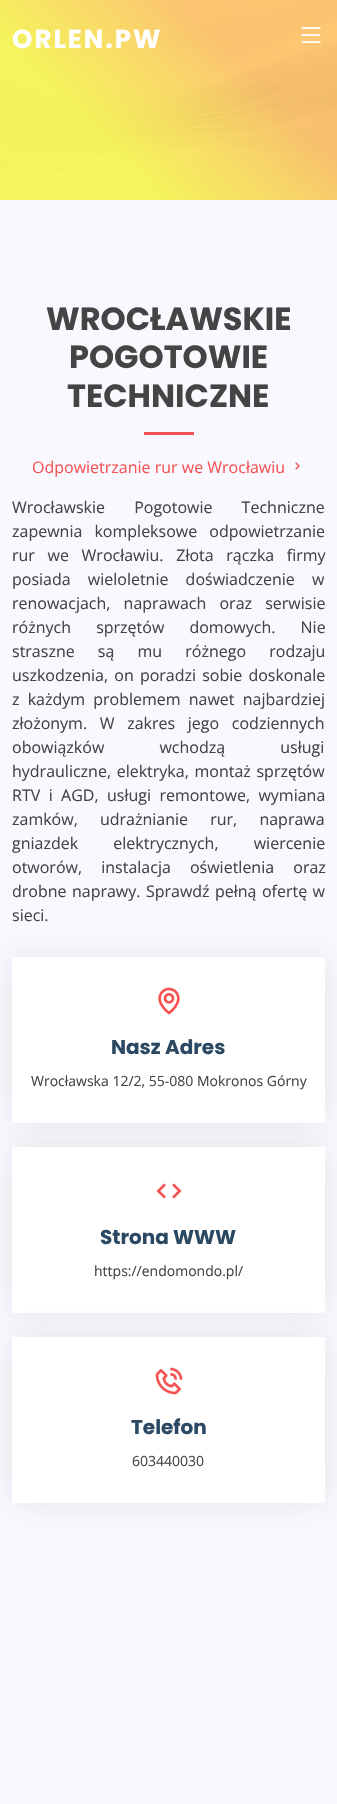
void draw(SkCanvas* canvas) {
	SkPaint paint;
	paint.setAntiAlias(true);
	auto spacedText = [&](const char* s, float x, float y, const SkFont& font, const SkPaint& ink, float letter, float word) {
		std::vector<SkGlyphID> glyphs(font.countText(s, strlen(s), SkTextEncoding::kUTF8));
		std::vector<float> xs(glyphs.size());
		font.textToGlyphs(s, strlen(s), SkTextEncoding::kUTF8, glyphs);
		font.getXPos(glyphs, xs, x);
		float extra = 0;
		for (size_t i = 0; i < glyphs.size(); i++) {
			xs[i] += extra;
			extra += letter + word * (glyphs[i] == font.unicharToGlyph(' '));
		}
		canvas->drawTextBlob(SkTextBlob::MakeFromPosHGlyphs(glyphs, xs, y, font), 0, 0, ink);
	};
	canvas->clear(0xffffffff);
	canvas->drawImageRect(SkImages::DeferredFromEncodedData(SkData::MakeFromFileName("img1.png")), SkRect::MakeXYWH(0, 0, 337, 200), SkSamplingOptions());
	SkFont f1(fontMgr->matchFamilyStyle("Poppins", SkFontStyle::Bold()), 26);
	f1.setSubpixel(true);
	paint.setColor(0xffffffff);
	spacedText("ORLEN.PW", 12, 48, f1, paint, 2, 0);
	canvas->drawImageRect(SkImages::DeferredFromEncodedData(SkData::MakeFromFileName("img2.png")), SkRect::MakeXYWH(301, 27, 20, 16), SkSamplingOptions());
	paint.setColor(0xfff9f8ff);
	canvas->drawRect(SkRect::MakeXYWH(0, 200, 337, 1604), paint);
	SkFont f2(fontMgr->matchFamilyStyle("Poppins", SkFontStyle::Bold()), 32);
	f2.setSubpixel(true);
	paint.setColor(0xff444444);
	canvas->drawString("WROCŁAWSKIE", 46, 330, f2, paint);
	canvas->drawString("POGOTOWIE", 69, 368, f2, paint);
	canvas->drawString("TECHNICZNE", 67, 407, f2, paint);
	paint.setColor(0xfff55353);
	canvas->drawRect(SkRect::MakeXYWH(144, 432, 50, 3), paint);
	SkFont f3(fontMgr->matchFamilyStyle("Open Sans", SkFontStyle::Normal()), 16);
	f3.setSubpixel(true);
	canvas->drawString("Odpowietrzanie rur we Wrocławiu", 32, 473, f3, paint);
	canvas->drawImageRect(SkImages::DeferredFromEncodedData(SkData::MakeFromFileName("img3.png")), SkRect::MakeXYWH(295, 462, 5, 8), SkSamplingOptions());
	paint.setColor(0xff444444);
	spacedText("Wrocławskie Pogotowie Techniczne", 12, 513, f3, paint, 0, 25);
	spacedText("zapewnia kompleksowe odpowietrzanie", 12, 537, f3, paint, 0, 8);
	spacedText("rur we Wrocławiu. Złota rączka firmy", 12, 561, f3, paint, 0, 8.5);
	spacedText("posiada wieloletnie doświadczenie w", 12, 585, f3, paint, 0, 13);
	spacedText("renowacjach, naprawach oraz serwisie", 12, 609, f3, paint, 0, 9);
	spacedText("różnych sprzętów domowych. Nie", 12, 633, f3, paint, 0, 21);
	spacedText("straszne są mu różnego rodzaju", 12, 657, f3, paint, 0, 19);
	spacedText("uszkodzenia, on poradzi sobie doskonale", 12, 681, f3, paint, 0, 2);
	spacedText("z każdym problemem nawet najbardziej", 12, 705, f3, paint, 0, 4);
	spacedText("złożonym. W zakres jego codziennych", 12, 729, f3, paint, 0, 8.5);
	spacedText("obowiązków wchodzą usługi", 12, 753, f3, paint, 0, 51);
	spacedText("hydrauliczne, elektryka, montaż sprzętów", 12, 777, f3, paint, 0, 1.5);
	spacedText("RTV i AGD, usługi remontowe, wymiana", 12, 801, f3, paint, 0, 4.25);
	spacedText("zamków, udrażnianie rur, naprawa", 12, 825, f3, paint, 0, 18);
	spacedText("gniazdek elektrycznych, wiercenie", 12, 849, f3, paint, 0, 31);
	spacedText("otworów, instalacja oświetlenia oraz", 12, 873, f3, paint, 0, 15);
	spacedText("drobne naprawy. Sprawdź pełną ofertę w", 12, 897, f3, paint, 0, 1.25);
	canvas->drawString("sieci.", 12, 921, f3, paint);
	paint.setColor(0x99d6d7d8);
	paint.setMaskFilter(SkMaskFilter::MakeBlur(kNormal_SkBlurStyle, 15));
	canvas->drawRect(SkRect::MakeXYWH(12, 957, 313, 166), paint);
	paint.setMaskFilter(nullptr);
	paint.setColor(0xffffffff);
	canvas->drawRect(SkRect::MakeXYWH(12, 957, 313, 166), paint);
	canvas->drawImageRect(SkImages::DeferredFromEncodedData(SkData::MakeFromFileName("img4.png")), SkRect::MakeXYWH(158, 987, 22, 28), SkSamplingOptions());
	SkFont f4(fontMgr->matchFamilyStyle("Poppins", SkFontStyle::Bold()), 20);
	f4.setSubpixel(true);
	paint.setColor(0xff2c4964);
	canvas->drawString("Nasz Adres", 111, 1054, f4, paint);
	SkFont f5(fontMgr->matchFamilyStyle("Open Sans", SkFontStyle::Normal()), 14);
	f5.setSubpixel(true);
	paint.setColor(0xff444444);
	canvas->drawString("Wrocławska 12/2, 55-080 Mokronos Górny", 31, 1086, f5, paint);
	paint.setColor(0x99d6d7d8);
	paint.setMaskFilter(SkMaskFilter::MakeBlur(kNormal_SkBlurStyle, 15));
	canvas->drawRect(SkRect::MakeXYWH(12, 1147, 313, 166), paint);
	paint.setMaskFilter(nullptr);
	paint.setColor(0xffffffff);
	canvas->drawRect(SkRect::MakeXYWH(12, 1147, 313, 166), paint);
	canvas->drawImageRect(SkImages::DeferredFromEncodedData(SkData::MakeFromFileName("img5.png")), SkRect::MakeXYWH(156, 1183, 26, 16), SkSamplingOptions());
	paint.setColor(0xff2c4964);
	canvas->drawString("Strona WWW", 100, 1244, f4, paint);
	paint.setColor(0xff444444);
	canvas->drawString("https://endomondo.pl/", 94, 1276, f5, paint);
	paint.setColor(0x99d6d7d8);
	paint.setMaskFilter(SkMaskFilter::MakeBlur(kNormal_SkBlurStyle, 15));
	canvas->drawRect(SkRect::MakeXYWH(12, 1337, 313, 166), paint);
	paint.setMaskFilter(nullptr);
	paint.setColor(0xffffffff);
	canvas->drawRect(SkRect::MakeXYWH(12, 1337, 313, 166), paint);
	canvas->drawImageRect(SkImages::DeferredFromEncodedData(SkData::MakeFromFileName("img6.png")), SkRect::MakeXYWH(155, 1367, 28, 28), SkSamplingOptions());
	paint.setColor(0xff2c4964);
	canvas->drawString("Telefon", 131, 1434, f4, paint);
	paint.setColor(0xff444444);
	canvas->drawString("603440030", 132, 1466, f5, paint);
}
